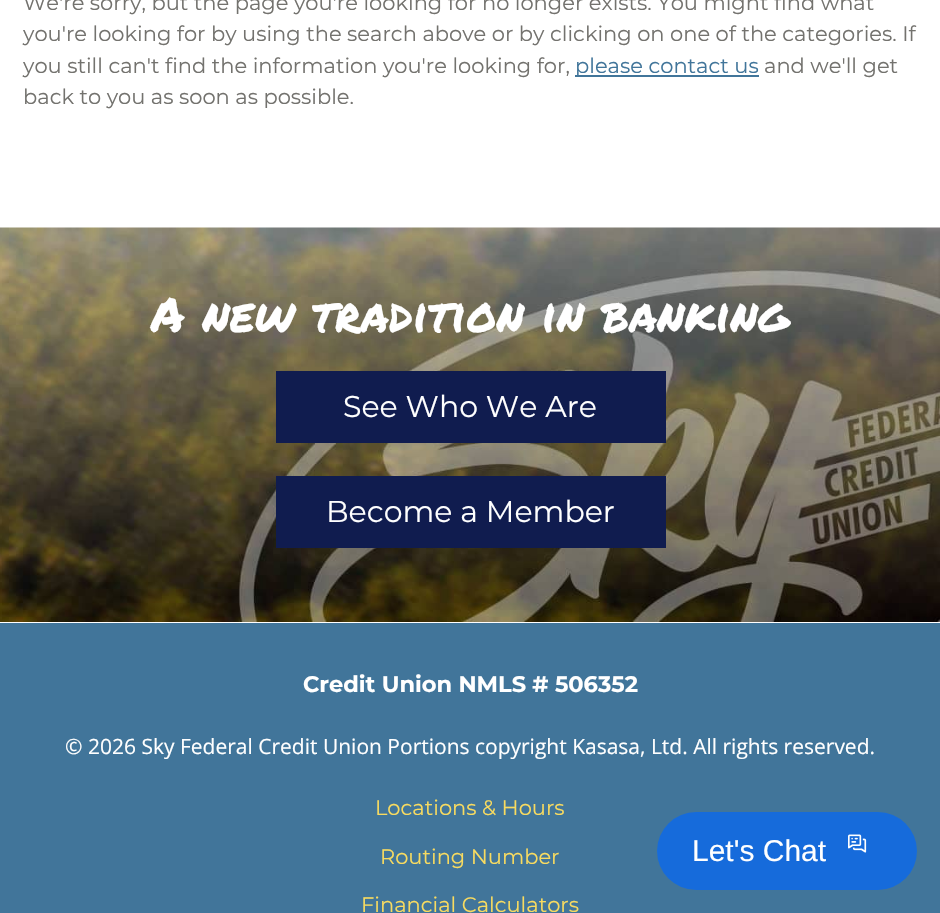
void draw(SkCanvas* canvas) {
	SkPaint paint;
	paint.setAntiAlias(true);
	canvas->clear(0xffffffff);
	SkFont f1(fontMgr->matchFamilyStyle("Montserrat", SkFontStyle::Normal()), 21);
	f1.setSubpixel(true);
	paint.setColor(0xff73726e);
	canvas->drawString("We're sorry, but the page you're looking for no longer exists. You might find what", 23, 10, f1, paint);
	canvas->drawString("you're looking for by using the search above or by clicking on one of the categories. If", 23, 41, f1, paint);
	canvas->drawString("you still can't find the information you're looking for,", 23, 73, f1, paint);
	paint.setColor(0xff41759a);
	canvas->drawRect(SkRect::MakeXYWH(575, 75, 184, 2), paint);
	canvas->drawString("please contact us", 575, 73, f1, paint);
	paint.setColor(0xff73726e);
	canvas->drawString("and we'll get", 764, 73, f1, paint);
	canvas->drawString("back to you as soon as possible.", 23, 104, f1, paint);
	canvas->drawImageRect(SkImages::DeferredFromEncodedData(SkData::MakeFromFileName("img1.png")), SkRect::MakeXYWH(0, 227, 940, 395), SkSamplingOptions());
	SkFont f2(fontMgr->matchFamilyStyle("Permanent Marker", SkFontStyle::Normal()), 48);
	f2.setSubpixel(true);
	paint.setColor(0xffffffff);
	canvas->drawString("A new tradition in banking", 151, 332, f2, paint);
	paint.setColor(0xff101c4f);
	canvas->drawRect(SkRect::MakeXYWH(276, 371, 390, 72), paint);
	SkFont f3(fontMgr->matchFamilyStyle("Montserrat", SkFontStyle::Normal()), 30);
	f3.setSubpixel(true);
	paint.setColor(0xffffffff);
	canvas->drawString("See Who We Are", 343, 417, f3, paint);
	paint.setColor(0xff101c4f);
	canvas->drawRect(SkRect::MakeXYWH(276, 476, 390, 72), paint);
	paint.setColor(0xffffffff);
	canvas->drawString("Become a Member", 326, 522, f3, paint);
	paint.setColor(0xff41759a);
	canvas->drawRect(SkRect::MakeXYWH(0, 623, 940, 290), paint);
	SkFont f4(fontMgr->matchFamilyStyle("Montserrat", SkFontStyle::Bold()), 22.5);
	f4.setSubpixel(true);
	paint.setColor(0xffffffff);
	canvas->drawString("Credit Union NMLS # 506352", 303, 692, f4, paint);
	SkFont f5(fontMgr->matchFamilyStyle("Open Sans", SkFontStyle::Normal()), 21);
	f5.setSubpixel(true);
	canvas->drawString("© 2026 Sky Federal Credit Union Portions copyright Kasasa, Ltd. All rights reserved.", 65, 754, f5, paint);
	paint.setColor(0xfff8db60);
	canvas->drawString("Locations & Hours", 375, 815, f1, paint);
	canvas->drawString("Routing Number", 380, 864, f1, paint);
	canvas->drawString("Financial Calculators", 361, 912, f1, paint);
	paint.setColor(0xff166bdb);
	canvas->drawRoundRect(SkRect::MakeXYWH(657, 812, 260, 78), 39, 39, paint);
	SkFont f6(fontMgr->matchFamilyStyle("Liberation Sans", SkFontStyle::Normal()), 30);
	f6.setSubpixel(true);
	paint.setColor(0xffffffff);
	canvas->drawString("Let's Chat", 692, 861, f6, paint);
	canvas->drawImageRect(SkImages::DeferredFromEncodedData(SkData::MakeFromFileName("img2.png")), SkRect::MakeXYWH(848, 834, 19, 19), SkSamplingOptions());
}
